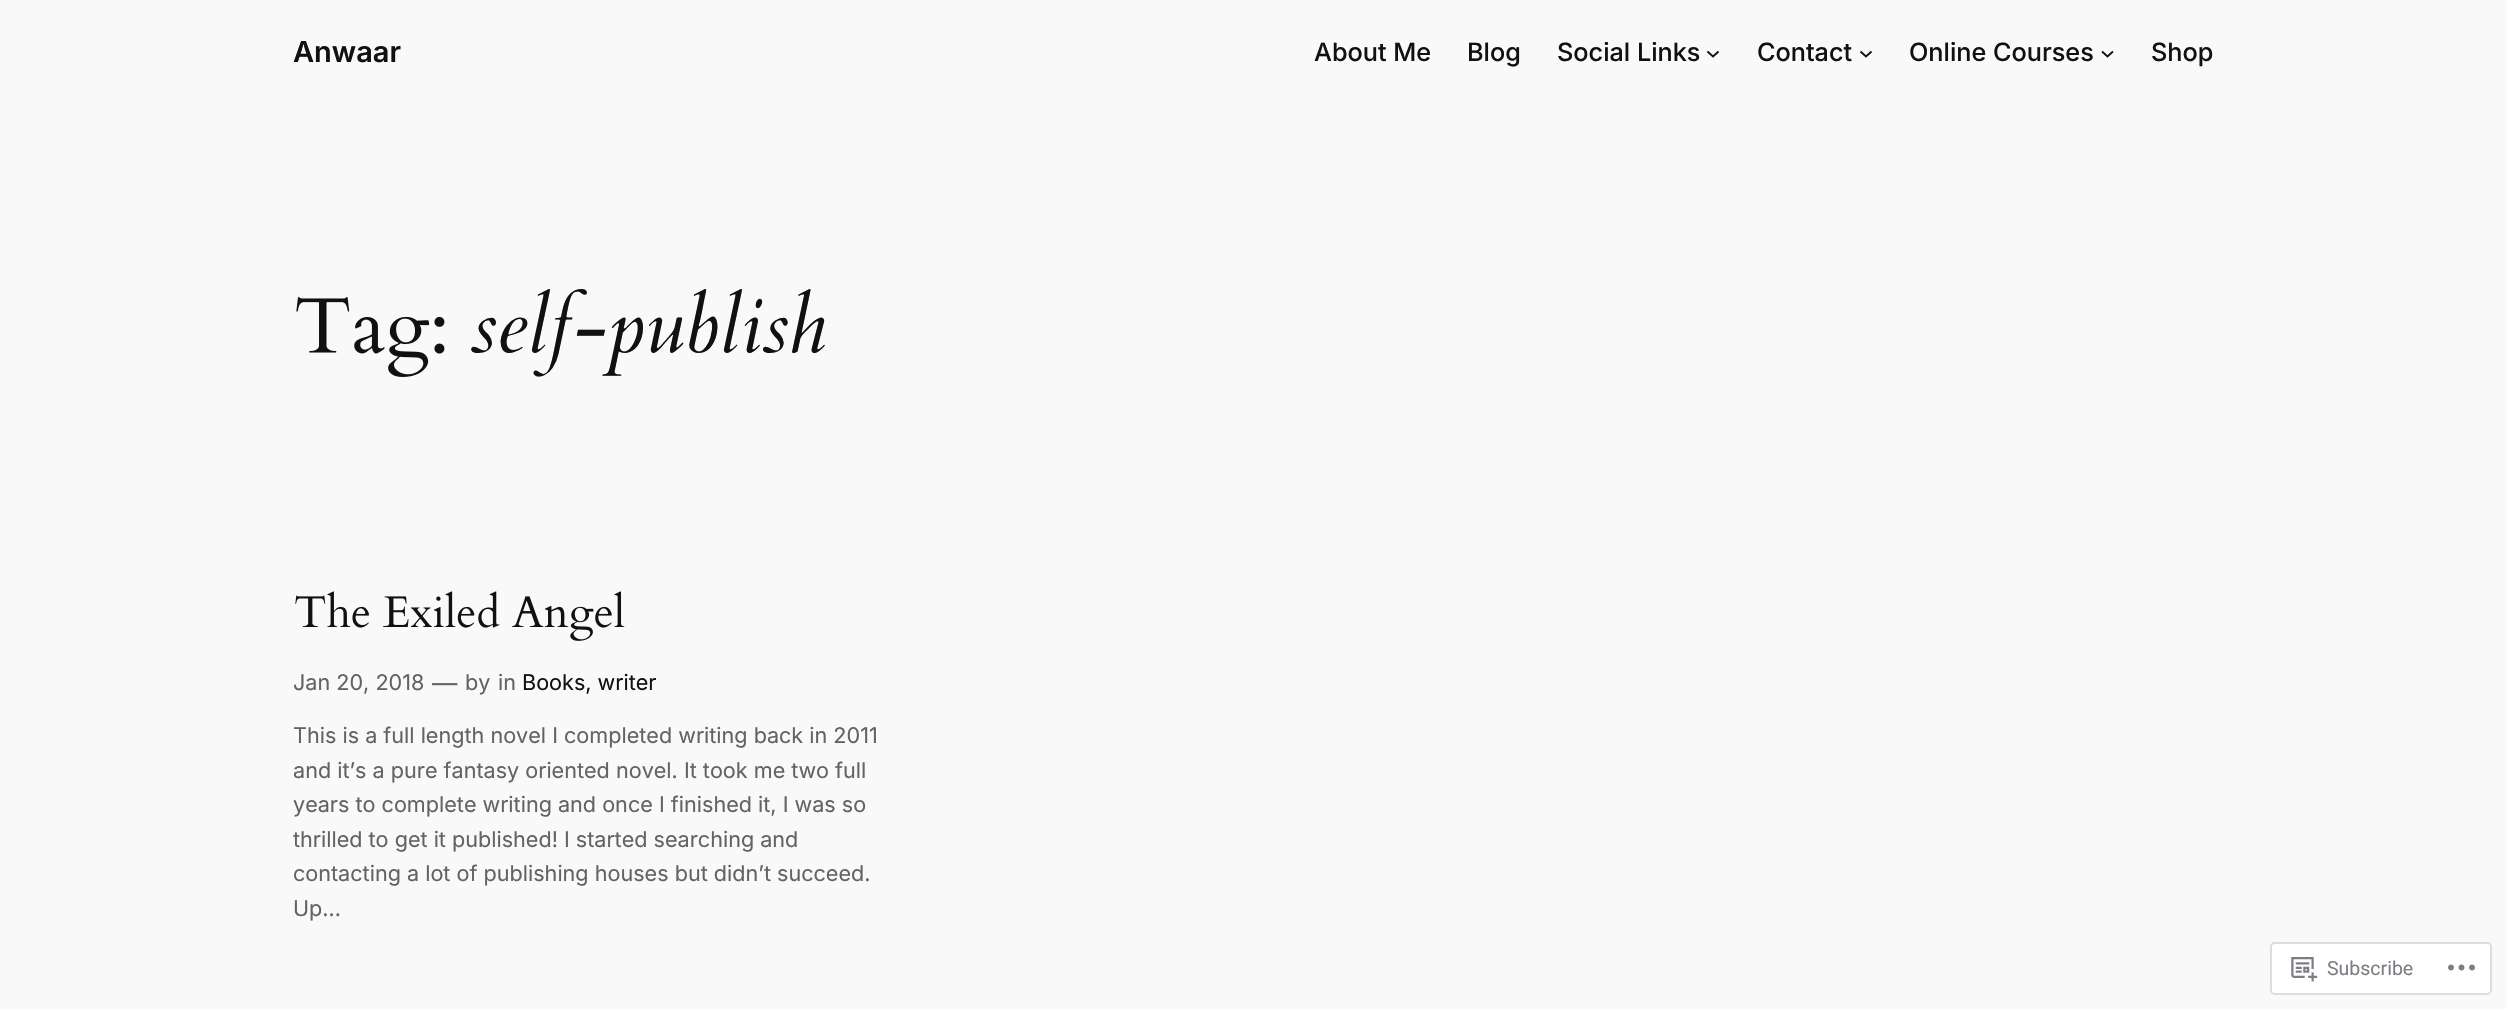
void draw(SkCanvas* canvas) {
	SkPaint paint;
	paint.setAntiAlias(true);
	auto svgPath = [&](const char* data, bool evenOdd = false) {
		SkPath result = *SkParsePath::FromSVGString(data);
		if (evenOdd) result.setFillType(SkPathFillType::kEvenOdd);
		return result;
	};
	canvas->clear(0xfff9f9f9);
	SkFont f1(fontMgr->matchFamilyStyle("Inter", SkFontStyle(600, SkFontStyle::kNormal_Width, SkFontStyle::kUpright_Slant)), 29);
	f1.setSubpixel(true);
	paint.setColor(0xff111111);
	canvas->drawString("Anwaar", 293, 62, f1, paint);
	SkFont f2(fontMgr->matchFamilyStyle("Inter", SkFontStyle(500, SkFontStyle::kNormal_Width, SkFontStyle::kUpright_Slant)), 25.25);
	f2.setSubpixel(true);
	canvas->drawString("About Me", 1314, 61, f2, paint);
	canvas->drawString("Blog", 1467, 61, f2, paint);
	canvas->drawString("Social Links", 1557, 61, f2, paint);
	paint.setStroke(true);
	paint.setStrokeWidth(1.9);
	canvas->drawPath(svgPath("M1707.5 51.5L1713 56.5L1718.5 51.5"), paint);
	paint.setStroke(false);
	canvas->drawString("Contact", 1757, 61, f2, paint);
	paint.setStroke(true);
	canvas->drawPath(svgPath("M1860.5 51.5L1866 56.5L1871.5 51.5"), paint);
	paint.setStroke(false);
	canvas->drawString("Online Courses", 1909, 61, f2, paint);
	paint.setStroke(true);
	canvas->drawPath(svgPath("M2102 51.5L2107.5 56.5L2113 51.5"), paint);
	paint.setStroke(false);
	canvas->drawString("Shop", 2151, 61, f2, paint);
	canvas->drawImageRect(SkImages::DeferredFromEncodedData(SkData::MakeFromFileName("img1.png")), SkRect::MakeXYWH(296, 297, 149, 80), SkSamplingOptions());
	SkFont f3(fontMgr->matchFamilyStyle("Cardo", SkFontStyle::Italic()), 78.5);
	f3.setSubpixel(true);
	canvas->drawString("self-publish", 470, 352, f3, paint);
	canvas->drawImageRect(SkImages::DeferredFromEncodedData(SkData::MakeFromFileName("img2.png")), SkRect::MakeXYWH(295, 591, 330, 50), SkSamplingOptions());
	SkFont f4(fontMgr->matchFamilyStyle("Inter", SkFontStyle::Normal()), 21.6);
	f4.setSubpixel(true);
	paint.setColor(0xff636363);
	canvas->drawString("Jan 20, 2018", 293, 690, f4, paint);
	SkFont f5(fontMgr->matchFamilyStyle("Inter", SkFontStyle::Normal()), 25.25);
	f5.setSubpixel(true);
	canvas->drawString("—", 432, 692, f5, paint);
	canvas->drawString("by", 465, 690, f4, paint);
	canvas->drawString("in", 498, 690, f4, paint);
	paint.setColor(0xff111111);
	canvas->drawString("Books, writer", 522, 690, f4, paint);
	paint.setColor(0xff636363);
	canvas->drawString("This is a full length novel I completed writing back in 2011", 293, 743, f4, paint);
	canvas->drawString("and it’s a pure fantasy oriented novel. It took me two full", 293, 778, f4, paint);
	canvas->drawString("years to complete writing and once I finished it, I was so", 293, 812, f4, paint);
	canvas->drawString("thrilled to get it published! I started searching and", 293, 847, f4, paint);
	canvas->drawString("contacting a lot of publishing houses but didn’t succeed.", 293, 881, f4, paint);
	canvas->drawString("Up…", 293, 916, f4, paint);
	paint.setColor(0xffffffff);
	canvas->drawRoundRect(SkRect::MakeXYWH(2271, 943, 220, 51), 4, 4, paint);
	paint.setStroke(true);
	paint.setStrokeWidth(2);
	paint.setColor(0xffdddddf);
	canvas->drawRoundRect(SkRect::MakeXYWH(2271, 943, 220, 51), 4, 4, paint);
	canvas->drawImageRect(SkImages::DeferredFromEncodedData(SkData::MakeFromFileName("img3.png")), SkRect::MakeXYWH(2291, 957, 27, 25), SkSamplingOptions());
	SkFont f6(fontMgr->matchFamilyStyle("Roboto", SkFontStyle::Normal()), 19.5);
	f6.setSubpixel(true);
	paint.setStroke(false);
	paint.setColor(0xff7b7f84);
	canvas->drawString("Subscribe", 2327, 975, f6, paint);
	canvas->drawImageRect(SkImages::DeferredFromEncodedData(SkData::MakeFromFileName("img4.png")), SkRect::MakeXYWH(2448, 964, 27, 7), SkSamplingOptions());
}
